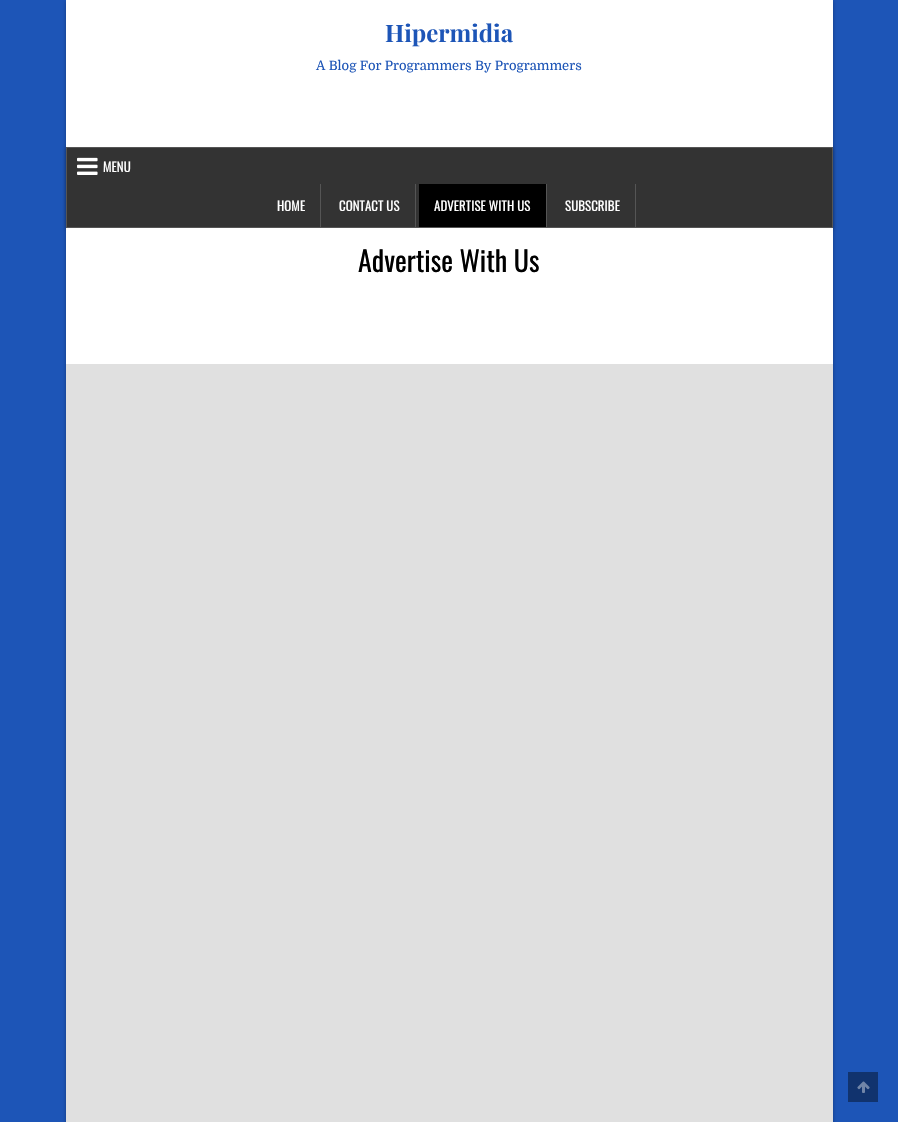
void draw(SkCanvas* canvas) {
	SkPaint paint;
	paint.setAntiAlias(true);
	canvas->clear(0xff1d55b7);
	paint.setColor(0x4d000000);
	paint.setMaskFilter(SkMaskFilter::MakeBlur(kNormal_SkBlurStyle, 2));
	canvas->drawRect(SkRect::MakeXYWH(66, 1, 767, 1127), paint);
	paint.setMaskFilter(nullptr);
	paint.setMaskFilter(SkMaskFilter::MakeBlur(kNormal_SkBlurStyle, 2));
	canvas->drawRect(SkRect::MakeXYWH(66, 148, 767, 81), paint);
	paint.setMaskFilter(nullptr);
	paint.setColor(0xffffffff);
	canvas->drawRect(SkRect::MakeXYWH(66, 0, 767, 147), paint);
	SkFont f1(fontMgr->matchFamilyStyle("Playfair Display", SkFontStyle::Bold()), 24);
	f1.setSubpixel(true);
	paint.setColor(0xff1d55b7);
	canvas->drawString("Hipermidia", 385, 42, f1, paint);
	SkFont f2(fontMgr->matchFamilyStyle("Domine", SkFontStyle::Normal()), 13);
	f2.setSubpixel(true);
	canvas->drawString("A Blog For Programmers By Programmers", 316, 70, f2, paint);
	paint.setColor(0xff333333);
	canvas->drawRect(SkRect::MakeXYWH(66.5, 147.5, 766, 80), paint);
	paint.setStroke(true);
	paint.setStrokeWidth(1);
	paint.setColor(0xff555555);
	canvas->drawRect(SkRect::MakeXYWH(66.5, 147.5, 766, 80), paint);
	canvas->drawImageRect(SkImages::DeferredFromEncodedData(SkData::MakeFromFileName("img1.png")), SkRect::MakeXYWH(77, 157, 21, 18), SkSamplingOptions());
	SkFont f3(fontMgr->matchFamilyStyle("Oswald", SkFontStyle::Normal()), 13);
	f3.setSubpixel(true);
	paint.setStroke(false);
	paint.setColor(0xffffffff);
	canvas->drawString("MENU", 103, 172, f3, paint);
	paint.setColor(0xff555555);
	canvas->drawRect(SkRect::MakeXYWH(320, 184, 1, 43), paint);
	paint.setColor(0xffffffff);
	canvas->drawString("HOME", 277, 211, f3, paint);
	paint.setColor(0xff555555);
	canvas->drawRect(SkRect::MakeXYWH(415, 184, 1, 43), paint);
	paint.setColor(0xffffffff);
	canvas->drawString("CONTACT US", 339, 211, f3, paint);
	paint.setColor(0xff000000);
	canvas->drawRect(SkRect::MakeXYWH(419, 184, 127, 43), paint);
	paint.setColor(0xff555555);
	canvas->drawRect(SkRect::MakeXYWH(546, 184, 1, 43), paint);
	paint.setColor(0xffffffff);
	canvas->drawString("ADVERTISE WITH US", 434, 211, f3, paint);
	paint.setColor(0xff555555);
	canvas->drawRect(SkRect::MakeXYWH(635, 184, 1, 43), paint);
	paint.setColor(0xffffffff);
	canvas->drawString("SUBSCRIBE", 565, 211, f3, paint);
	canvas->drawRect(SkRect::MakeXYWH(66, 228, 767, 136), paint);
	SkFont f4(fontMgr->matchFamilyStyle("Oswald", SkFontStyle::Normal()), 28);
	f4.setSubpixel(true);
	paint.setColor(0xff000000);
	canvas->drawString("Advertise With Us", 358, 272, f4, paint);
	paint.setColor(0xffe0e0e0);
	canvas->drawRect(SkRect::MakeXYWH(66, 364, 767, 758), paint);
	paint.setColor(0xff11336e);
	canvas->drawRect(SkRect::MakeXYWH(848, 1072, 30, 30), paint);
	canvas->drawImageRect(SkImages::DeferredFromEncodedData(SkData::MakeFromFileName("img2.png")), SkRect::MakeXYWH(857, 1081, 13, 12), SkSamplingOptions());
}
